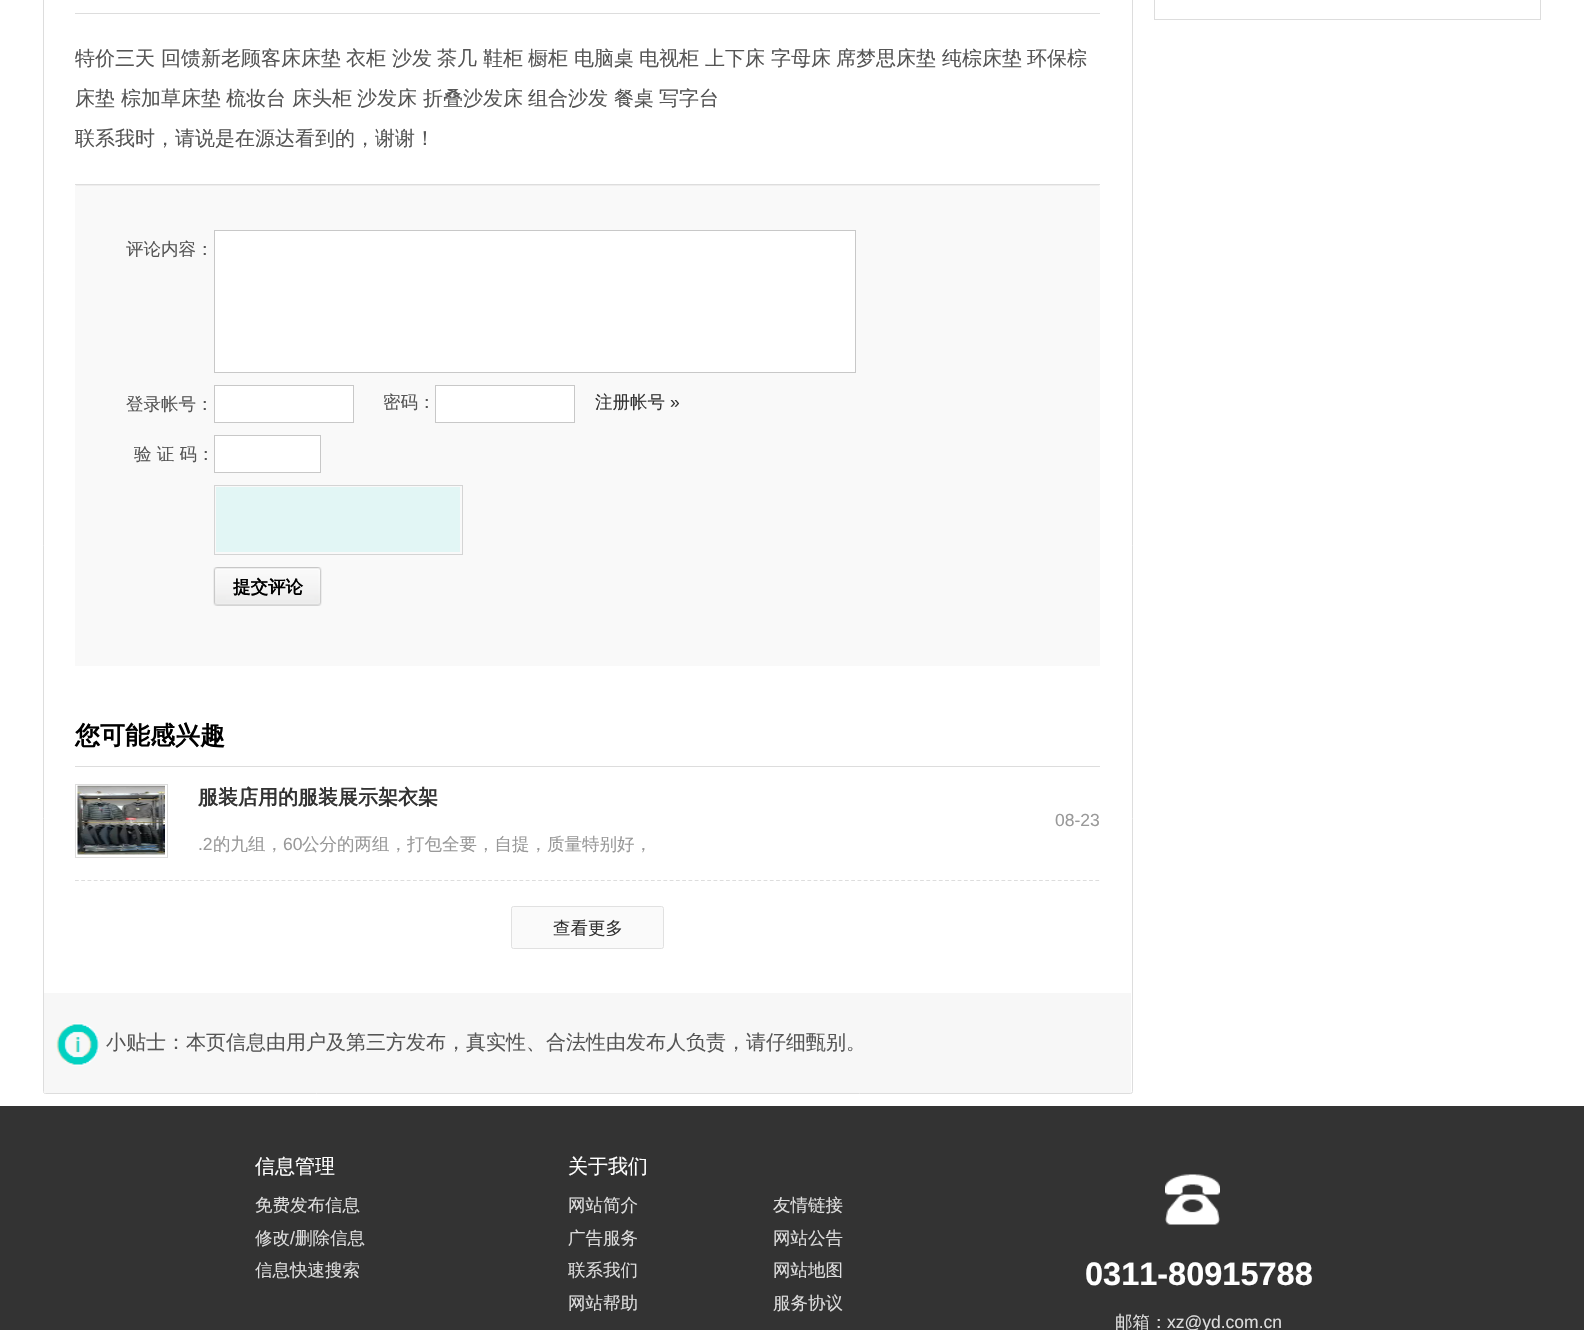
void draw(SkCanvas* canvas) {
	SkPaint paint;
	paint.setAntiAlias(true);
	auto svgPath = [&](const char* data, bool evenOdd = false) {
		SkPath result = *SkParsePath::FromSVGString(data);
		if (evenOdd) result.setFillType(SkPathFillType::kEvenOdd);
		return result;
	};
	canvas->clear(0xffffffff);
	paint.setStroke(true);
	paint.setStrokeWidth(1);
	paint.setColor(0xffdddddd);
	canvas->drawRect(SkRect::MakeXYWH(1154.5, -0.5, 386, 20), paint);
	canvas->drawRoundRect(SkRect::MakeXYWH(43.5, -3.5, 1089, 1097), 2, 2, paint);
	paint.setStroke(false);
	canvas->drawRect(SkRect::MakeXYWH(75, 13, 1025, 1), paint);
	SkFont f1(fontMgr->matchFamilyStyle("WenQuanYi Zen Hei", SkFontStyle(500, SkFontStyle::kNormal_Width, SkFontStyle::kUpright_Slant)), 20);
	f1.setSubpixel(true);
	paint.setColor(0xff555555);
	canvas->drawString("特价三天", 75, 65, f1, paint);
	canvas->drawString("回馈新老顾客床床垫", 161, 65, f1, paint);
	canvas->drawString("衣柜", 346, 65, f1, paint);
	canvas->drawString("沙发", 392, 65, f1, paint);
	canvas->drawString("茶几", 437, 65, f1, paint);
	canvas->drawString("鞋柜", 483, 65, f1, paint);
	canvas->drawString("橱柜", 528, 65, f1, paint);
	canvas->drawString("电脑桌", 574, 65, f1, paint);
	canvas->drawString("电视柜", 639, 65, f1, paint);
	canvas->drawString("上下床", 705, 65, f1, paint);
	canvas->drawString("字母床", 771, 65, f1, paint);
	canvas->drawString("席梦思床垫", 836, 65, f1, paint);
	canvas->drawString("纯棕床垫", 942, 65, f1, paint);
	canvas->drawString("环保棕", 1027, 65, f1, paint);
	canvas->drawString("床垫", 75, 105, f1, paint);
	canvas->drawString("棕加草床垫", 121, 105, f1, paint);
	canvas->drawString("梳妆台", 226, 105, f1, paint);
	canvas->drawString("床头柜", 292, 105, f1, paint);
	canvas->drawString("沙发床", 357, 105, f1, paint);
	canvas->drawString("折叠沙发床", 423, 105, f1, paint);
	canvas->drawString("组合沙发", 528, 105, f1, paint);
	canvas->drawString("餐桌", 614, 105, f1, paint);
	canvas->drawString("写字台", 659, 105, f1, paint);
	canvas->drawString("联系我时，请说是在源达看到的，谢谢！", 75, 145, f1, paint);
	paint.setColor(0xfff9f9f9);
	canvas->drawRect(SkRect::MakeXYWH(75, 185, 1025, 481), paint);
	paint.setColor(0xffdddddd);
	canvas->drawRect(SkRect::MakeXYWH(75, 184, 1025, 1), paint);
	paint.setColor(0xffeeeded);
	canvas->drawRect(SkRect::MakeXYWH(76, 185, 1023, 1), paint);
	SkFont f2(fontMgr->matchFamilyStyle("WenQuanYi Zen Hei", SkFontStyle(500, SkFontStyle::kNormal_Width, SkFontStyle::kUpright_Slant)), 17.5);
	f2.setSubpixel(true);
	paint.setColor(0xff555555);
	canvas->drawString("评论内容：", 126, 255, f2, paint);
	paint.setColor(0xffffffff);
	canvas->drawRect(SkRect::MakeXYWH(214.5, 230.5, 641, 142), paint);
	paint.setStroke(true);
	paint.setColor(0xffc8c8c8);
	canvas->drawRect(SkRect::MakeXYWH(214.5, 230.5, 641, 142), paint);
	paint.setStroke(false);
	paint.setColor(0xff555555);
	canvas->drawString("登录帐号：", 126, 410, f2, paint);
	paint.setColor(0xffffffff);
	canvas->drawRect(SkRect::MakeXYWH(214.5, 385.5, 139, 37), paint);
	paint.setStroke(true);
	paint.setColor(0xffc8c8c8);
	canvas->drawRect(SkRect::MakeXYWH(214.5, 385.5, 139, 37), paint);
	paint.setStroke(false);
	paint.setColor(0xff555555);
	canvas->drawString("密码：", 383, 408, f2, paint);
	paint.setColor(0xffffffff);
	canvas->drawRect(SkRect::MakeXYWH(435.5, 385.5, 139, 37), paint);
	paint.setStroke(true);
	paint.setColor(0xffc8c8c8);
	canvas->drawRect(SkRect::MakeXYWH(435.5, 385.5, 139, 37), paint);
	paint.setStroke(false);
	paint.setColor(0xff333333);
	canvas->drawString("注册帐号", 595, 408, f2, paint);
	SkFont f3(fontMgr->matchFamilyStyle("Liberation Sans", SkFontStyle::Normal()), 17.5);
	f3.setSubpixel(true);
	canvas->drawString("»", 670, 408, f3, paint);
	paint.setColor(0xff555555);
	canvas->drawString("验 证 码：", 134, 460, f2, paint);
	paint.setColor(0xffffffff);
	canvas->drawRect(SkRect::MakeXYWH(214.5, 435.5, 106, 37), paint);
	paint.setStroke(true);
	paint.setColor(0xffc8c8c8);
	canvas->drawRect(SkRect::MakeXYWH(214.5, 435.5, 106, 37), paint);
	paint.setColor(0xffd4d4d4);
	canvas->drawRect(SkRect::MakeXYWH(214.5, 485.5, 248, 69), paint);
	paint.setStroke(false);
	paint.setColor(0xffe2f6f5);
	canvas->drawRect(SkRect::MakeXYWH(216, 487, 244, 65), paint);
	canvas->drawImageRect(SkImages::DeferredFromEncodedData(SkData::MakeFromFileName("img1.png")), SkRect::MakeXYWH(213, 567, 109, 39), SkSamplingOptions());
	SkFont f4(fontMgr->matchFamilyStyle("WenQuanYi Zen Hei", SkFontStyle::Bold()), 17.5);
	f4.setSubpixel(true);
	paint.setColor(0xff000000);
	canvas->drawString("提交评论", 233, 593, f4, paint);
	paint.setColor(0xffdddddd);
	canvas->drawRect(SkRect::MakeXYWH(75, 766, 1025, 1), paint);
	SkFont f5(fontMgr->matchFamilyStyle("WenQuanYi Zen Hei", SkFontStyle::Bold()), 25);
	f5.setSubpixel(true);
	paint.setColor(0xff000000);
	canvas->drawString("您可能感兴趣", 75, 744, f5, paint);
	paint.setStroke(true);
	paint.setStrokeWidth(1.2);
	paint.setColor(0xffdddddd);
	paint.setPathEffect(SkDashPathEffect::Make({{3.75f, 2.51f}}, 0));
	canvas->drawPath(svgPath("M75 880.5H1100"), paint);
	paint.setPathEffect(nullptr);
	paint.setStrokeWidth(1);
	canvas->drawRect(SkRect::MakeXYWH(75.5, 784.5, 92, 73), paint);
	canvas->drawImageRect(SkImages::DeferredFromEncodedData(SkData::MakeFromFileName("img2.png")), SkRect::MakeXYWH(77, 785, 88, 70), SkSamplingOptions());
	SkFont f6(fontMgr->matchFamilyStyle("WenQuanYi Zen Hei", SkFontStyle::Bold()), 20);
	f6.setSubpixel(true);
	paint.setStroke(false);
	paint.setColor(0xff333333);
	canvas->drawString("服装店用的服装展示架衣架", 198, 804, f6, paint);
	paint.setColor(0xff999999);
	canvas->drawString(".2", 198, 850, f3, paint);
	canvas->drawString("的九组，", 213, 850, f2, paint);
	canvas->drawString("60", 283, 850, f3, paint);
	canvas->drawString("公分的两组，打包全要，自提，质量特别好，", 302, 850, f2, paint);
	canvas->drawString("08-23", 1055, 826, f3, paint);
	paint.setColor(0xfffafafa);
	canvas->drawRoundRect(SkRect::MakeXYWH(511.5, 906.5, 152, 42), 2, 2, paint);
	paint.setStroke(true);
	paint.setColor(0xffe1e1e1);
	canvas->drawRoundRect(SkRect::MakeXYWH(511.5, 906.5, 152, 42), 2, 2, paint);
	paint.setStroke(false);
	paint.setColor(0xff333333);
	canvas->drawString("查看更多", 553, 934, f2, paint);
	paint.setColor(0xfff7f7f7);
	canvas->drawRect(SkRect::MakeXYWH(44, 993, 1087, 100), paint);
	canvas->drawImageRect(SkImages::DeferredFromEncodedData(SkData::MakeFromFileName("img3.png")), SkRect::MakeXYWH(56, 1023, 43, 43), SkSamplingOptions());
	paint.setColor(0xff555555);
	canvas->drawString("小贴士：本页信息由用户及第三方发布，真实性、合法性由发布人负责，请仔细甄别。", 106, 1049, f1, paint);
	paint.setColor(0xff333333);
	canvas->drawRect(SkRect::MakeXYWH(0, 1106, 1584, 224), paint);
	paint.setColor(0xffffffff);
	canvas->drawString("信息管理", 255, 1173, f1, paint);
	paint.setColor(0xffdddddd);
	canvas->drawString("免费发布信息", 255, 1211, f2, paint);
	canvas->drawString("修改", 255, 1244, f2, paint);
	canvas->drawString("/", 290, 1244, f3, paint);
	canvas->drawString("删除信息", 295, 1244, f2, paint);
	canvas->drawString("信息快速搜索", 255, 1276, f2, paint);
	paint.setColor(0xffffffff);
	canvas->drawString("关于我们", 568, 1173, f1, paint);
	paint.setColor(0xffdddddd);
	canvas->drawString("网站简介", 568, 1211, f2, paint);
	canvas->drawString("广告服务", 568, 1244, f2, paint);
	canvas->drawString("联系我们", 568, 1276, f2, paint);
	canvas->drawString("网站帮助", 568, 1309, f2, paint);
	canvas->drawString("友情链接", 773, 1211, f2, paint);
	canvas->drawString("网站公告", 773, 1244, f2, paint);
	canvas->drawString("网站地图", 773, 1276, f2, paint);
	canvas->drawString("服务协议", 773, 1309, f2, paint);
	canvas->drawImageRect(SkImages::DeferredFromEncodedData(SkData::MakeFromFileName("img4.png")), SkRect::MakeXYWH(1165, 1174, 55, 51), SkSamplingOptions());
	SkFont f7(fontMgr->matchFamilyStyle("Liberation Sans", SkFontStyle::Bold()), 32.5);
	f7.setSubpixel(true);
	paint.setColor(0xffffffff);
	canvas->drawString("0311-80915788", 1085, 1285, f7, paint);
	paint.setColor(0xffdddddd);
	canvas->drawString("邮箱：", 1115, 1328, f2, paint);
	canvas->drawString("xz@yd.com.cn", 1167, 1328, f3, paint);
}
